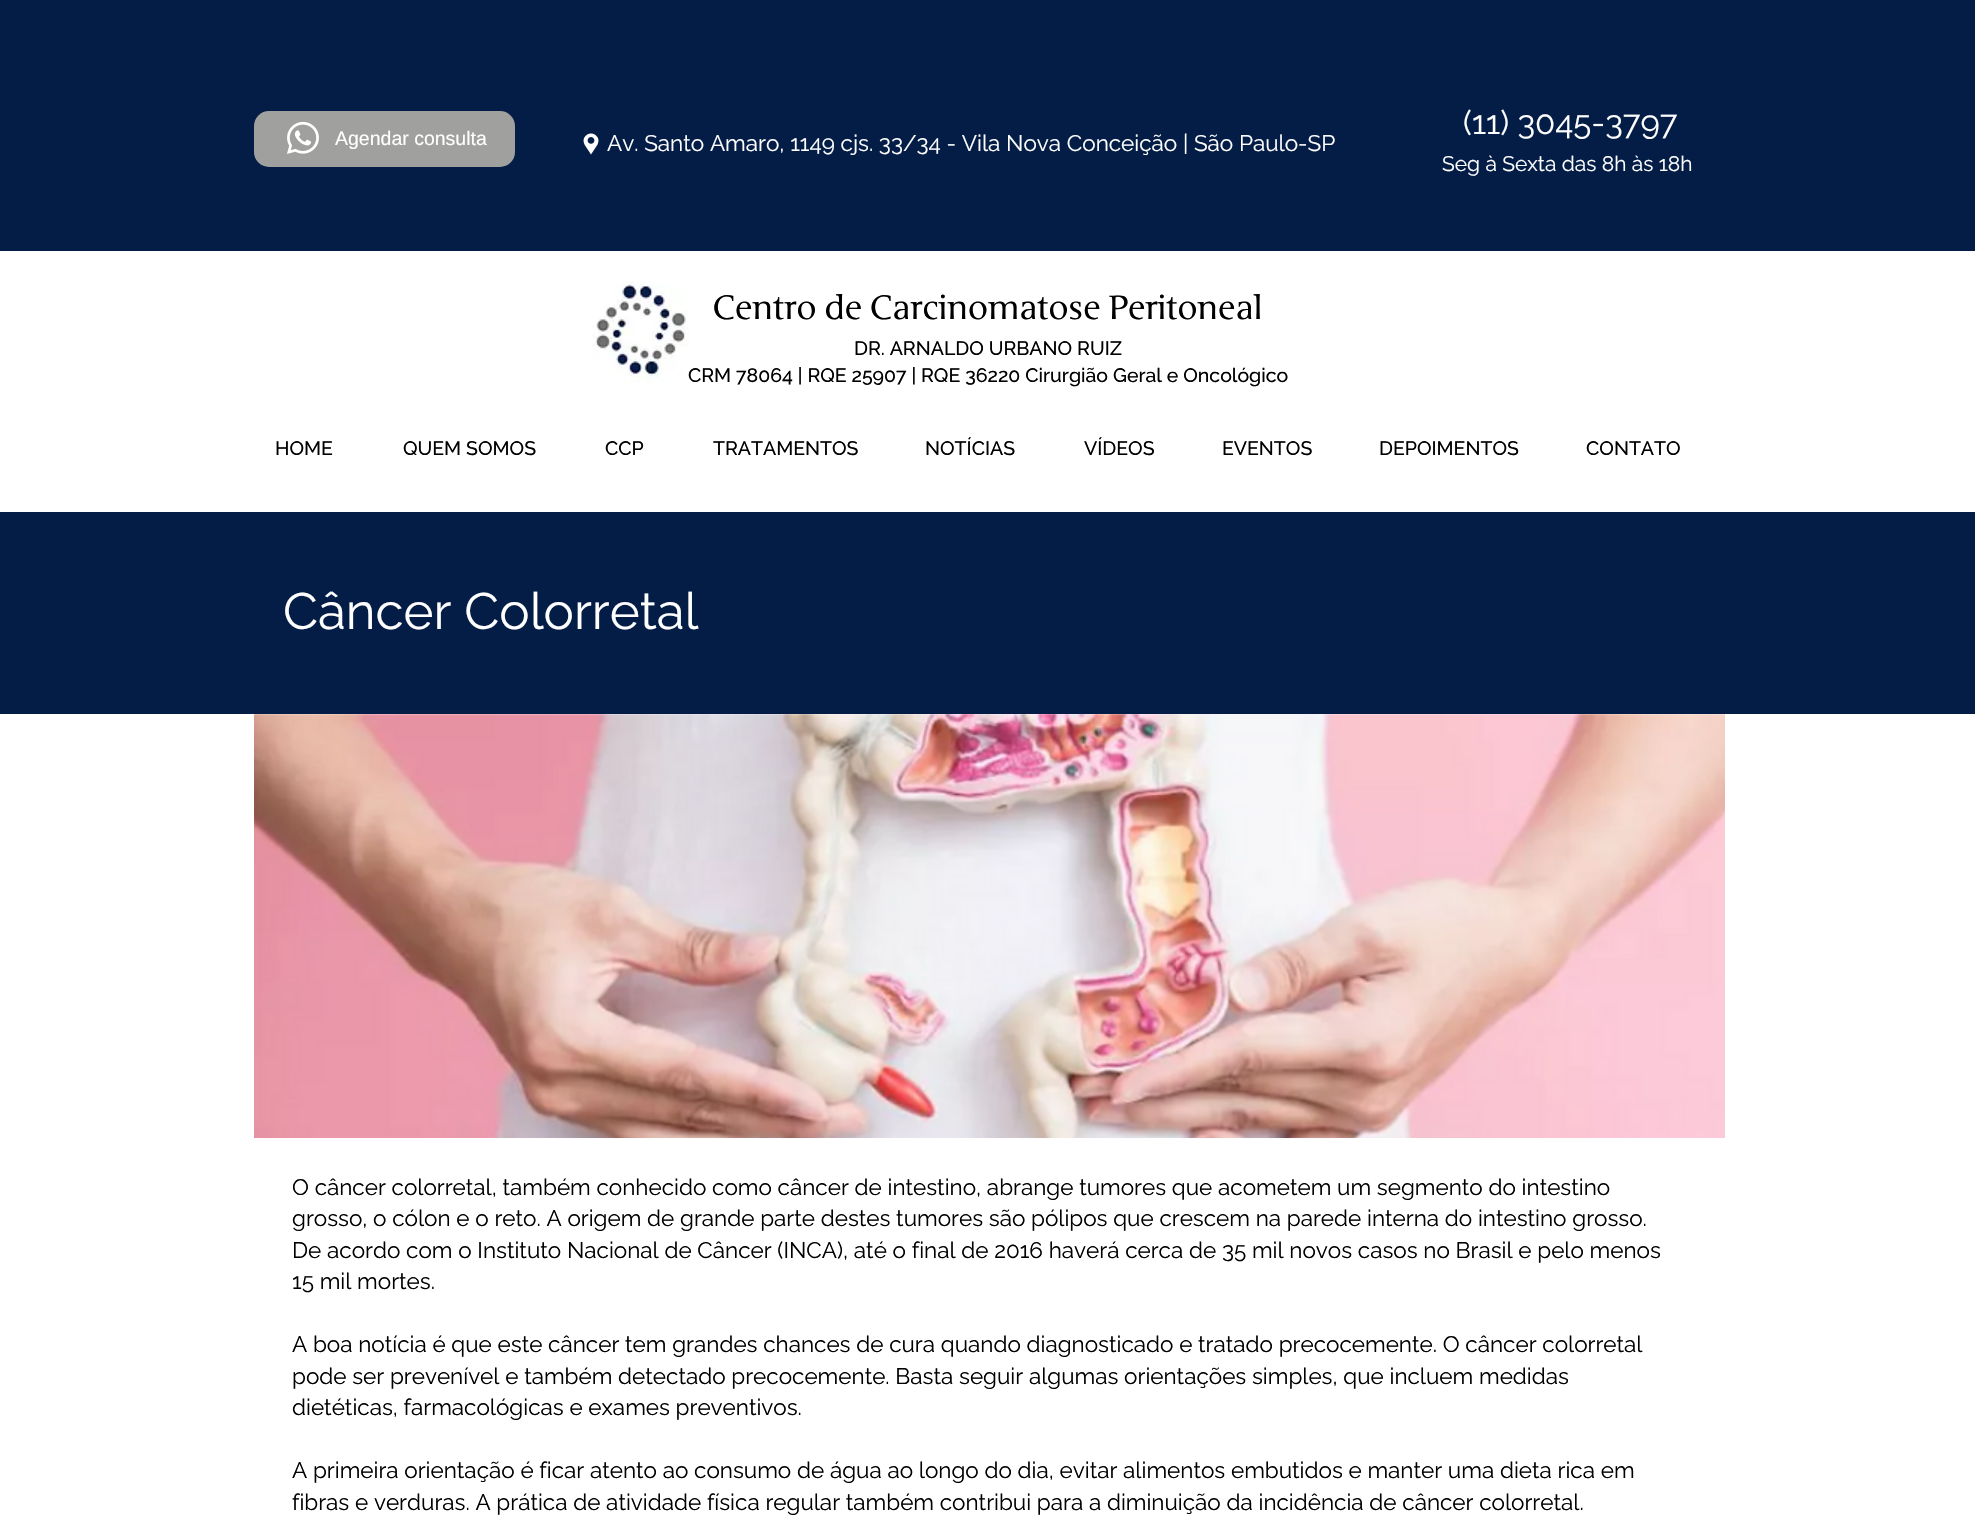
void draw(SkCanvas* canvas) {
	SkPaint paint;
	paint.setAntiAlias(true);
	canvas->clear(0xffffffff);
	paint.setColor(0xff041d46);
	canvas->drawRect(SkRect::MakeXYWH(0, 0, 1975, 251), paint);
	paint.setColor(0xffa0a09f);
	canvas->drawRoundRect(SkRect::MakeXYWH(254, 111, 261, 56), 15, 15, paint);
	canvas->drawImageRect(SkImages::DeferredFromEncodedData(SkData::MakeFromFileName("img1.png")), SkRect::MakeXYWH(287, 121, 32, 33), SkSamplingOptions());
	SkFont f1(fontMgr->matchFamilyStyle("Liberation Sans", SkFontStyle::Normal()), 19.5);
	f1.setSubpixel(true);
	paint.setColor(0xffffffff);
	canvas->drawString("Agendar consulta", 335, 145, f1, paint);
	canvas->drawImageRect(SkImages::DeferredFromEncodedData(SkData::MakeFromFileName("img2.png")), SkRect::MakeXYWH(583, 133, 16, 22), SkSamplingOptions());
	SkFont f2(fontMgr->matchFamilyStyle("Raleway", SkFontStyle::Normal()), 22.5);
	f2.setSubpixel(true);
	canvas->drawString("Av. Santo Amaro, 1149 cjs. 33/34 - Vila Nova Conceição | São Paulo-SP", 607, 151, f2, paint);
	SkFont f3(fontMgr->matchFamilyStyle("Raleway", SkFontStyle::Normal()), 33);
	f3.setSubpixel(true);
	canvas->drawString("(11) 3045-3797", 1463, 134, f3, paint);
	SkFont f4(fontMgr->matchFamilyStyle("Raleway", SkFontStyle::Normal()), 21);
	f4.setSubpixel(true);
	canvas->drawString("Seg à Sexta das 8h às 18h", 1442, 171, f4, paint);
	canvas->drawImageRect(SkImages::DeferredFromEncodedData(SkData::MakeFromFileName("img3.png")), SkRect::MakeXYWH(592, 281, 97, 102), SkSamplingOptions());
	SkFont f5(fontMgr->matchFamilyStyle("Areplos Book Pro", SkFontStyle::Normal()), 33);
	f5.setSubpixel(true);
	paint.setColor(0xff000000);
	canvas->drawString("Centro de Carcinomatose Peritoneal", 713, 319, f5, paint);
	SkFont f6(fontMgr->matchFamilyStyle("Raleway", SkFontStyle(500, SkFontStyle::kNormal_Width, SkFontStyle::kUpright_Slant)), 19.5);
	f6.setSubpixel(true);
	canvas->drawString("DR. ARNALDO URBANO RUIZ", 854, 355, f6, paint);
	canvas->drawString("CRM 78064 | RQE 25907 | RQE 36220 Cirurgião Geral e Oncológico", 688, 382, f6, paint);
	canvas->drawString("HOME", 275, 455, f6, paint);
	canvas->drawString("QUEM SOMOS", 403, 455, f6, paint);
	canvas->drawString("CCP", 605, 455, f6, paint);
	canvas->drawString("TRATAMENTOS", 713, 455, f6, paint);
	canvas->drawString("NOTÍCIAS", 925, 455, f6, paint);
	canvas->drawString("VÍDEOS", 1084, 455, f6, paint);
	canvas->drawString("EVENTOS", 1222, 455, f6, paint);
	canvas->drawString("DEPOIMENTOS", 1379, 455, f6, paint);
	canvas->drawString("CONTATO", 1586, 455, f6, paint);
	paint.setColor(0xff041d46);
	canvas->drawRect(SkRect::MakeXYWH(0, 512, 1975, 202), paint);
	SkFont f7(fontMgr->matchFamilyStyle("Raleway", SkFontStyle::Normal()), 51);
	f7.setSubpixel(true);
	paint.setColor(0xffffffff);
	canvas->drawString("Câncer Colorretal", 283, 629, f7, paint);
	canvas->drawImageRect(SkImages::DeferredFromEncodedData(SkData::MakeFromFileName("img4.png")), SkRect::MakeXYWH(254, 714, 1471, 425), SkSamplingOptions());
	paint.setColor(0xff000000);
	canvas->drawString("O câncer colorretal, também conhecido como câncer de intestino, abrange tumores que acometem um segmento do intestino", 292, 1195, f2, paint);
	canvas->drawString("grosso, o cólon e o reto. A origem de grande parte destes tumores são pólipos que crescem na parede interna do intestino grosso.", 292, 1226, f2, paint);
	canvas->drawString("De acordo com o Instituto Nacional de Câncer (INCA), até o final de 2016 haverá cerca de 35 mil novos casos no Brasil e pelo menos", 292, 1258, f2, paint);
	canvas->drawString("15 mil mortes.", 292, 1289, f2, paint);
	canvas->drawString("A boa notícia é que este câncer tem grandes chances de cura quando diagnosticado e tratado precocemente. O câncer colorretal", 292, 1352, f2, paint);
	canvas->drawString("pode ser prevenível e também detectado precocemente. Basta seguir algumas orientações simples, que incluem medidas", 292, 1384, f2, paint);
	canvas->drawString("dietéticas, farmacológicas e exames preventivos.", 292, 1415, f2, paint);
	canvas->drawString("A primeira orientação é ficar atento ao consumo de água ao longo do dia, evitar alimentos embutidos e manter uma dieta rica em", 292, 1478, f2, paint);
	canvas->drawString("fibras e verduras. A prática de atividade física regular também contribui para a diminuição da incidência de câncer colorretal.", 292, 1510, f2, paint);
}
